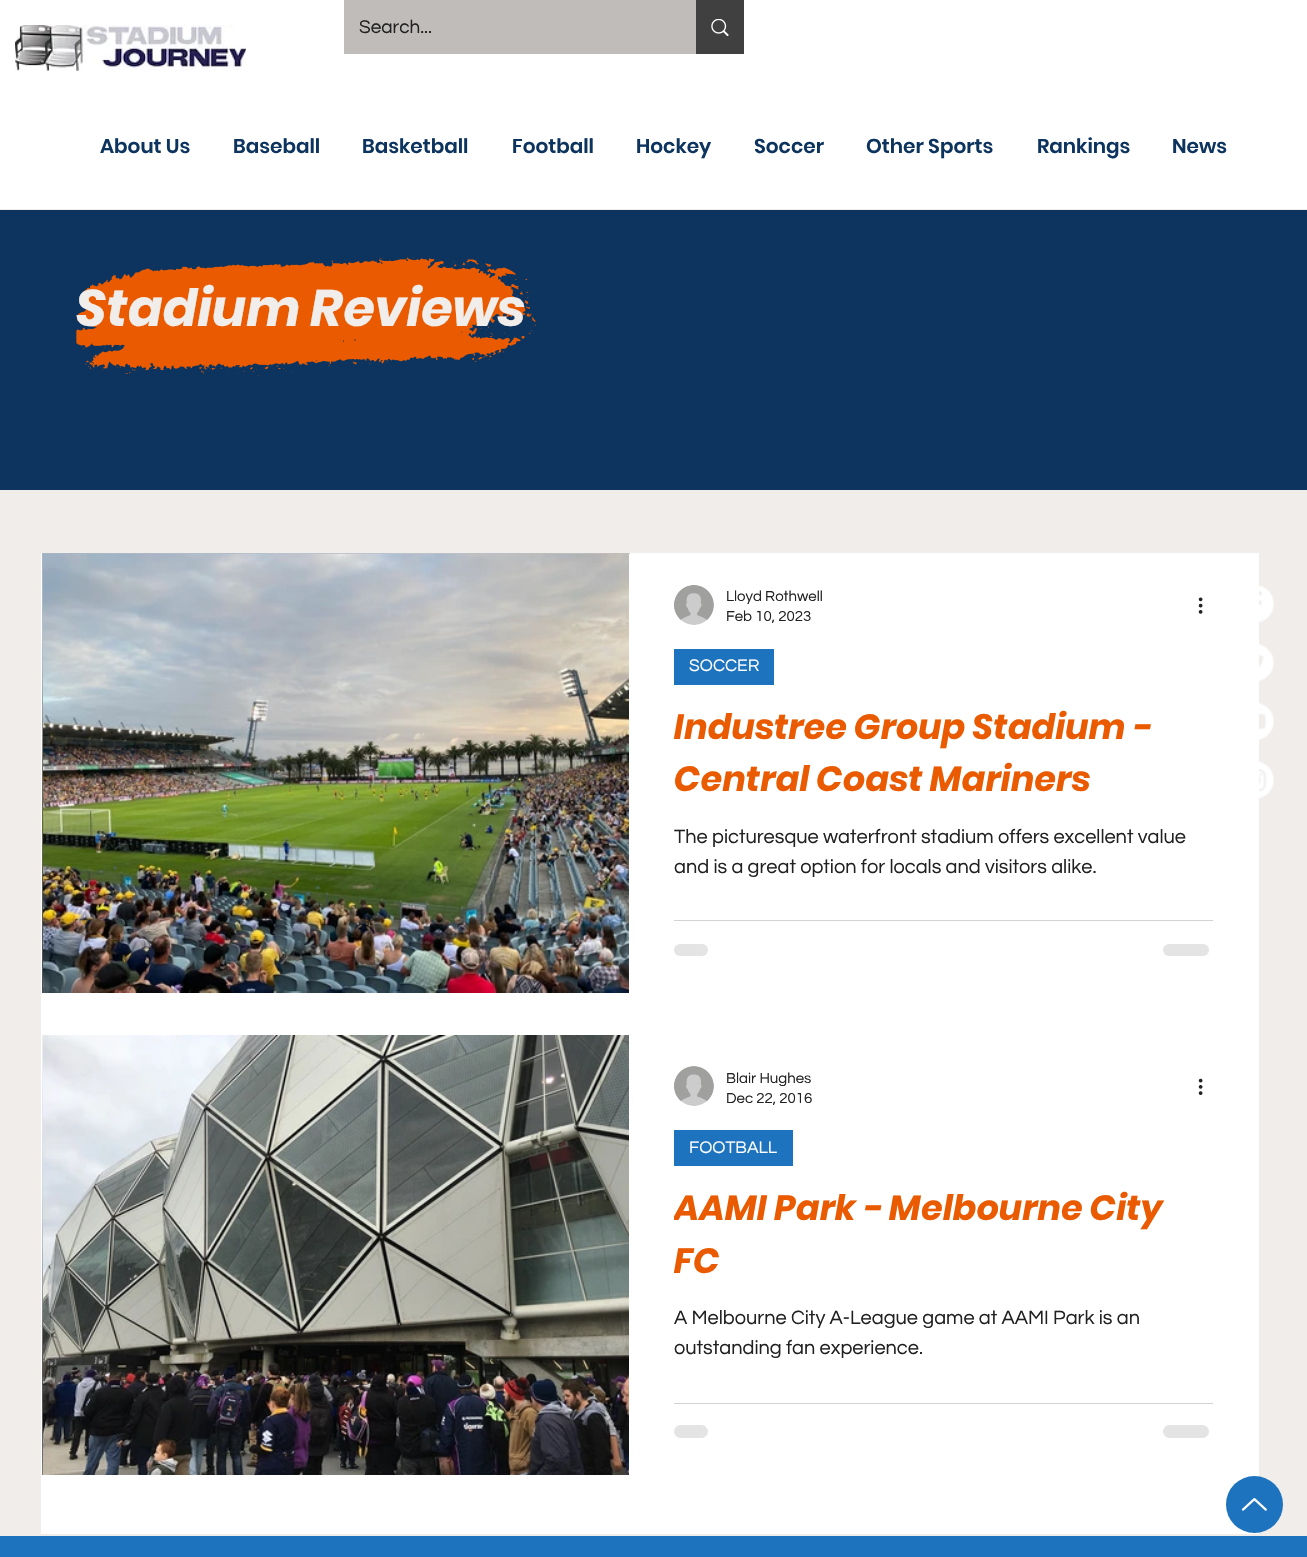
void draw(SkCanvas* canvas) {
	SkPaint paint;
	paint.setAntiAlias(true);
	canvas->clear(0xfff0edeb);
	paint.setColor(0xffffffff);
	canvas->drawRect(SkRect::MakeXYWH(0, 0, 1307, 209), paint);
	paint.setColor(0xffbfbcba);
	canvas->drawRect(SkRect::MakeXYWH(344, 0, 352, 54), paint);
	SkFont f1(fontMgr->matchFamilyStyle("Questrial", SkFontStyle::Normal()), 19);
	f1.setSubpixel(true);
	paint.setColor(0xff212121);
	canvas->drawString("Search...", 359, 33, f1, paint);
	paint.setColor(0xff414040);
	canvas->drawRect(SkRect::MakeXYWH(696, 0, 48, 54), paint);
	canvas->drawImageRect(SkImages::DeferredFromEncodedData(SkData::MakeFromFileName("img1.png")), SkRect::MakeXYWH(711, 19, 18, 17), SkSamplingOptions());
	SkFont f2(fontMgr->matchFamilyStyle("Poppins", SkFontStyle(600, SkFontStyle::kNormal_Width, SkFontStyle::kUpright_Slant)), 20);
	f2.setSubpixel(true);
	paint.setColor(0xff0d345e);
	canvas->drawString("About Us", 100, 153, f2, paint);
	canvas->drawString("Baseball", 233, 153, f2, paint);
	canvas->drawString("Basketball", 362, 153, f2, paint);
	canvas->drawString("Football", 512, 153, f2, paint);
	canvas->drawString("Hockey", 636, 153, f2, paint);
	canvas->drawString("Soccer", 754, 153, f2, paint);
	canvas->drawString("Other Sports", 866, 153, f2, paint);
	canvas->drawString("Rankings", 1037, 153, f2, paint);
	canvas->drawString("News", 1172, 153, f2, paint);
	canvas->drawImageRect(SkImages::DeferredFromEncodedData(SkData::MakeFromFileName("img2.png")), SkRect::MakeXYWH(15, 25, 231, 46), SkSamplingOptions());
	canvas->drawRect(SkRect::MakeXYWH(0, 210, 1307, 280), paint);
	canvas->drawImageRect(SkImages::DeferredFromEncodedData(SkData::MakeFromFileName("img3.png")), SkRect::MakeXYWH(76, 257, 460, 120), SkSamplingOptions());
	SkFont f3(fontMgr->matchFamilyStyle("Poppins", SkFontStyle::BoldItalic()), 51.25);
	f3.setSubpixel(true);
	paint.setColor(0xfff0edeb);
	canvas->drawString("Stadium Reviews", 76, 326, f3, paint);
	paint.setColor(0xffffffff);
	canvas->drawRect(SkRect::MakeXYWH(41, 553, 1218, 981), paint);
	canvas->drawImageRect(SkImages::DeferredFromEncodedData(SkData::MakeFromFileName("img4.png")), SkRect::MakeXYWH(42, 553, 588, 440), SkSamplingOptions());
	canvas->drawImageRect(SkImages::DeferredFromEncodedData(SkData::MakeFromFileName("img5.png")), SkRect::MakeXYWH(43, 554, 586, 439), SkSamplingOptions());
	canvas->drawRect(SkRect::MakeXYWH(629, 554, 1, 439), paint);
	canvas->drawImageRect(SkImages::DeferredFromEncodedData(SkData::MakeFromFileName("img6.png")), SkRect::MakeXYWH(674, 585, 40, 40), SkSamplingOptions());
	SkFont f4(fontMgr->matchFamilyStyle("Questrial", SkFontStyle::Normal()), 15);
	f4.setSubpixel(true);
	paint.setColor(0xff212121);
	canvas->drawString("Lloyd Rothwell", 726, 601, f4, paint);
	canvas->drawString("Feb 10, 2023", 726, 621, f4, paint);
	canvas->drawImageRect(SkImages::DeferredFromEncodedData(SkData::MakeFromFileName("img7.png")), SkRect::MakeXYWH(1198, 597, 5, 17), SkSamplingOptions());
	paint.setColor(0xff1e73be);
	canvas->drawRect(SkRect::MakeXYWH(674, 649, 100, 36), paint);
	SkFont f5(fontMgr->matchFamilyStyle("Questrial", SkFontStyle::Normal()), 17.5);
	f5.setSubpixel(true);
	paint.setColor(0xffffffff);
	canvas->drawString("SOCCER", 689, 671, f5, paint);
	SkFont f6(fontMgr->matchFamilyStyle("Poppins", SkFontStyle::BoldItalic()), 35);
	f6.setSubpixel(true);
	paint.setColor(0xffea5a00);
	canvas->drawString("Industree Group Stadium -", 674, 739, f6, paint);
	canvas->drawString("Central Coast Mariners", 674, 791, f6, paint);
	SkFont f7(fontMgr->matchFamilyStyle("Questrial", SkFontStyle::Normal()), 20);
	f7.setSubpixel(true);
	paint.setColor(0xff212121);
	canvas->drawString("The picturesque waterfront stadium offers excellent value", 674, 843, f7, paint);
	canvas->drawString("and is a great option for locals and visitors alike.", 674, 873, f7, paint);
	paint.setColor(0xffd3d3d3);
	canvas->drawRect(SkRect::MakeXYWH(674, 920, 539, 1), paint);
	paint.setColor(0xffe4e4e4);
	canvas->drawRoundRect(SkRect::MakeXYWH(674, 944, 34, 12), 6, 6, paint);
	canvas->drawRoundRect(SkRect::MakeXYWH(1163, 944, 46, 12), 6, 6, paint);
	canvas->drawImageRect(SkImages::DeferredFromEncodedData(SkData::MakeFromFileName("img8.png")), SkRect::MakeXYWH(42, 1035, 1, 440), SkSamplingOptions());
	canvas->drawImageRect(SkImages::DeferredFromEncodedData(SkData::MakeFromFileName("img9.png")), SkRect::MakeXYWH(43, 1035, 586, 440), SkSamplingOptions());
	canvas->drawImageRect(SkImages::DeferredFromEncodedData(SkData::MakeFromFileName("img10.png")), SkRect::MakeXYWH(674, 1066, 40, 40), SkSamplingOptions());
	paint.setColor(0xff212121);
	canvas->drawString("Blair Hughes", 726, 1083, f4, paint);
	canvas->drawString("Dec 22, 2016", 726, 1103, f4, paint);
	canvas->drawImageRect(SkImages::DeferredFromEncodedData(SkData::MakeFromFileName("img11.png")), SkRect::MakeXYWH(1198, 1078, 5, 17), SkSamplingOptions());
	paint.setColor(0xff1e73be);
	canvas->drawRect(SkRect::MakeXYWH(674, 1130, 119, 36), paint);
	paint.setColor(0xffffffff);
	canvas->drawString("FOOTBALL", 689, 1153, f5, paint);
	canvas->save();
	canvas->clipRect(SkRect::MakeXYWH(674, 1183, 539, 105));
	paint.setColor(0xffea5a00);
	canvas->drawString("AAMI Park - Melbourne City", 674, 1220, f6, paint);
	canvas->restore();
	canvas->drawString("FC", 674, 1273, f6, paint);
	paint.setColor(0xff212121);
	canvas->drawString("A Melbourne City A-League game at AAMI Park is an", 674, 1324, f7, paint);
	canvas->drawString("outstanding fan experience.", 674, 1354, f7, paint);
	paint.setColor(0xffd3d3d3);
	canvas->drawRect(SkRect::MakeXYWH(674, 1403, 539, 1), paint);
	paint.setColor(0xffe4e4e4);
	canvas->drawRoundRect(SkRect::MakeXYWH(674, 1425, 34, 13), 6.5, 6.5, paint);
	canvas->drawRoundRect(SkRect::MakeXYWH(1163, 1425, 46, 13), 6.5, 6.5, paint);
	canvas->drawImageRect(SkImages::DeferredFromEncodedData(SkData::MakeFromFileName("img12.png")), SkRect::MakeXYWH(1259, 585, 15, 38), SkSamplingOptions());
	canvas->drawImageRect(SkImages::DeferredFromEncodedData(SkData::MakeFromFileName("img13.png")), SkRect::MakeXYWH(1259, 644, 15, 38), SkSamplingOptions());
	canvas->drawImageRect(SkImages::DeferredFromEncodedData(SkData::MakeFromFileName("img14.png")), SkRect::MakeXYWH(1259, 703, 15, 37), SkSamplingOptions());
	canvas->drawImageRect(SkImages::DeferredFromEncodedData(SkData::MakeFromFileName("img15.png")), SkRect::MakeXYWH(1259, 761, 15, 38), SkSamplingOptions());
	paint.setColor(0xff1e73be);
	canvas->drawCircle(1254.5, 1504.5, 28.5, paint);
	canvas->drawImageRect(SkImages::DeferredFromEncodedData(SkData::MakeFromFileName("img16.png")), SkRect::MakeXYWH(1241, 1498, 26, 13), SkSamplingOptions());
	canvas->drawRect(SkRect::MakeXYWH(0, 1536, 1307, 21), paint);
}
